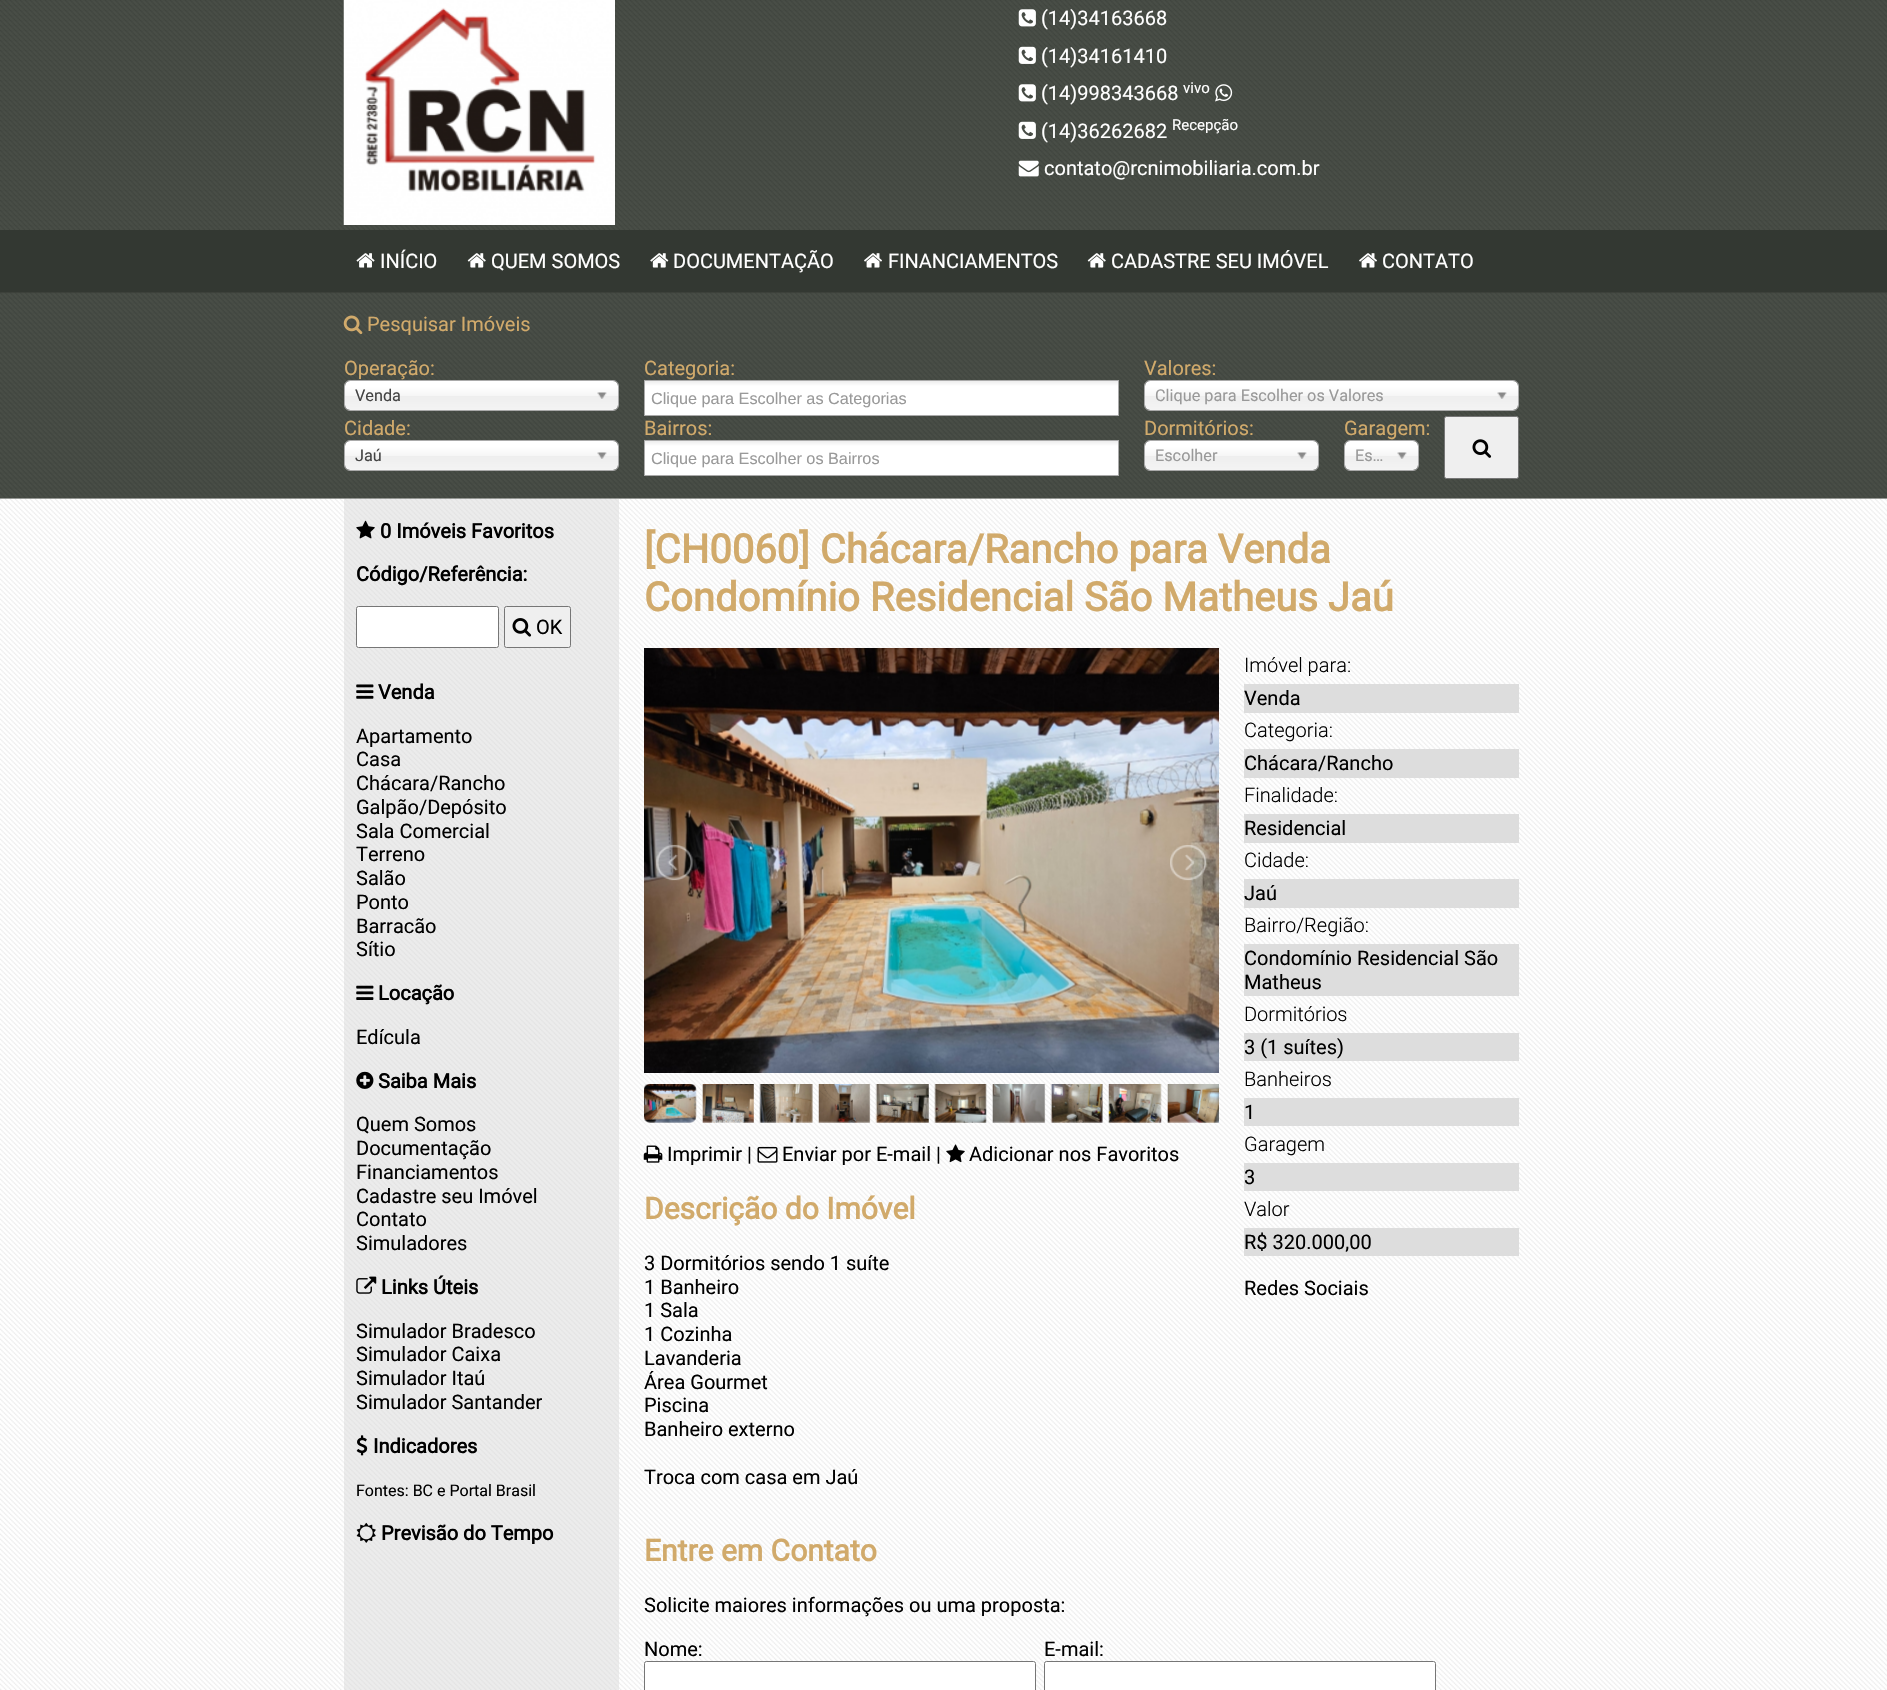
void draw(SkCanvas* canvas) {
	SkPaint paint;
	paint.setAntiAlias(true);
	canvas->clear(0xffffffff);
	canvas->drawImageRect(SkImages::DeferredFromEncodedData(SkData::MakeFromFileName("img1.png")), SkRect::MakeXYWH(0, 0, 1887, 230), SkSamplingOptions());
	canvas->drawImageRect(SkImages::DeferredFromEncodedData(SkData::MakeFromFileName("img2.png")), SkRect::MakeXYWH(343, 0, 272, 225), SkSamplingOptions());
	canvas->drawImageRect(SkImages::DeferredFromEncodedData(SkData::MakeFromFileName("img3.png")), SkRect::MakeXYWH(1018, 9, 18, 18), SkSamplingOptions());
	SkFont f1(fontMgr->matchFamilyStyle("Roboto", SkFontStyle::Normal()), 20);
	f1.setSubpixel(true);
	paint.setColor(0xffffffff);
	canvas->drawString("(14)34163668", 1041, 25, f1, paint);
	canvas->drawImageRect(SkImages::DeferredFromEncodedData(SkData::MakeFromFileName("img4.png")), SkRect::MakeXYWH(1018, 46, 18, 18), SkSamplingOptions());
	canvas->drawString("(14)34161410", 1041, 63, f1, paint);
	canvas->drawImageRect(SkImages::DeferredFromEncodedData(SkData::MakeFromFileName("img3.png")), SkRect::MakeXYWH(1018, 84, 18, 18), SkSamplingOptions());
	canvas->drawString("(14)998343668", 1041, 100, f1, paint);
	SkFont f2(fontMgr->matchFamilyStyle("Roboto", SkFontStyle::Normal()), 15);
	f2.setSubpixel(true);
	canvas->drawString("vivo", 1183, 93, f2, paint);
	canvas->drawImageRect(SkImages::DeferredFromEncodedData(SkData::MakeFromFileName("img5.png")), SkRect::MakeXYWH(1215, 84, 18, 18), SkSamplingOptions());
	canvas->drawImageRect(SkImages::DeferredFromEncodedData(SkData::MakeFromFileName("img4.png")), SkRect::MakeXYWH(1018, 121, 18, 18), SkSamplingOptions());
	canvas->drawString("(14)36262682", 1041, 138, f1, paint);
	canvas->drawString("Recepção", 1172, 130, f2, paint);
	canvas->drawImageRect(SkImages::DeferredFromEncodedData(SkData::MakeFromFileName("img6.png")), SkRect::MakeXYWH(1018, 160, 21, 17), SkSamplingOptions());
	canvas->drawString("contato@rcnimobiliaria.com.br", 1044, 175, f1, paint);
	paint.setColor(0xff333832);
	canvas->drawRect(SkRect::MakeXYWH(0, 230, 1887, 63), paint);
	canvas->drawImageRect(SkImages::DeferredFromEncodedData(SkData::MakeFromFileName("img7.png")), SkRect::MakeXYWH(356, 253, 19, 15), SkSamplingOptions());
	paint.setColor(0xffffffff);
	canvas->drawString("INÍCIO", 380, 268, f1, paint);
	canvas->drawImageRect(SkImages::DeferredFromEncodedData(SkData::MakeFromFileName("img8.png")), SkRect::MakeXYWH(467, 253, 19, 15), SkSamplingOptions());
	canvas->drawString("QUEM SOMOS", 491, 268, f1, paint);
	canvas->drawImageRect(SkImages::DeferredFromEncodedData(SkData::MakeFromFileName("img9.png")), SkRect::MakeXYWH(650, 253, 19, 15), SkSamplingOptions());
	canvas->drawString("DOCUMENTAÇÃO", 673, 268, f1, paint);
	canvas->drawImageRect(SkImages::DeferredFromEncodedData(SkData::MakeFromFileName("img10.png")), SkRect::MakeXYWH(864, 253, 18, 15), SkSamplingOptions());
	canvas->drawString("FINANCIAMENTOS", 888, 268, f1, paint);
	canvas->drawImageRect(SkImages::DeferredFromEncodedData(SkData::MakeFromFileName("img8.png")), SkRect::MakeXYWH(1087, 253, 19, 15), SkSamplingOptions());
	canvas->drawString("CADASTRE SEU IMÓVEL", 1111, 268, f1, paint);
	canvas->drawImageRect(SkImages::DeferredFromEncodedData(SkData::MakeFromFileName("img10.png")), SkRect::MakeXYWH(1359, 253, 18, 15), SkSamplingOptions());
	canvas->drawString("CONTATO", 1382, 268, f1, paint);
	canvas->drawImageRect(SkImages::DeferredFromEncodedData(SkData::MakeFromFileName("img11.png")), SkRect::MakeXYWH(0, 292, 1887, 207), SkSamplingOptions());
	canvas->drawImageRect(SkImages::DeferredFromEncodedData(SkData::MakeFromFileName("img12.png")), SkRect::MakeXYWH(343, 315, 20, 20), SkSamplingOptions());
	paint.setColor(0xffd1aa6b);
	canvas->drawString("Pesquisar Imóveis", 367, 331, f1, paint);
	canvas->drawString("Operação:", 344, 375, f1, paint);
	{
		const SkColor colors[] = {0xffffffff, 0xfff6f6f6, 0xffeeeeee, 0xfff4f4f4};
		const float stops[] = {0.2, 0.5, 0.52, 1};
		const SkPoint ends[] = {{481, 381}, {481, 410}};
		paint.setShader(SkGradientShader::MakeLinear(ends, colors, stops, 4, SkTileMode::kClamp));
		paint.setAlpha(255);
	}
	canvas->drawRoundRect(SkRect::MakeXYWH(345, 381, 273, 29), 5, 5, paint);
	paint.setStroke(true);
	paint.setStrokeWidth(1);
	paint.setShader(nullptr);
	paint.setColor(0xffaaaaaa);
	canvas->drawRoundRect(SkRect::MakeXYWH(344.5, 380.5, 274, 30), 5.5, 5.5, paint);
	SkFont f3(fontMgr->matchFamilyStyle("Roboto", SkFontStyle::Normal()), 16.25);
	f3.setSubpixel(true);
	paint.setStroke(false);
	paint.setColor(0xff444444);
	canvas->drawString("Venda", 355, 401, f3, paint);
	canvas->drawImageRect(SkImages::DeferredFromEncodedData(SkData::MakeFromFileName("img13.png")), SkRect::MakeXYWH(597, 392, 10, 7), SkSamplingOptions());
	paint.setColor(0xffd1aa6b);
	canvas->drawString("Categoria:", 644, 375, f1, paint);
	{
		const SkColor colors[] = {0xffeeeeee, 0xffffffff};
		const float stops[] = {0.01, 0.15};
		const SkPoint ends[] = {{881, 381}, {881, 415}};
		paint.setShader(SkGradientShader::MakeLinear(ends, colors, stops, 2, SkTileMode::kClamp));
		paint.setAlpha(255);
	}
	canvas->drawRect(SkRect::MakeXYWH(645, 381, 473, 34), paint);
	paint.setStroke(true);
	paint.setShader(nullptr);
	paint.setColor(0xffaaaaaa);
	canvas->drawRect(SkRect::MakeXYWH(644.5, 380.5, 474, 35), paint);
	SkFont f4(fontMgr->matchFamilyStyle("Liberation Sans", SkFontStyle::Normal()), 16.25);
	f4.setSubpixel(true);
	paint.setStroke(false);
	paint.setColor(0xff999999);
	canvas->drawString("Clique para Escolher as Categorias", 651, 404, f4, paint);
	paint.setColor(0xffd1aa6b);
	canvas->drawString("Valores:", 1144, 375, f1, paint);
	{
		const SkColor colors[] = {0xffffffff, 0xfff6f6f6, 0xffeeeeee, 0xfff4f4f4};
		const float stops[] = {0.2, 0.5, 0.52, 1};
		const SkPoint ends[] = {{1331, 381}, {1331, 410}};
		paint.setShader(SkGradientShader::MakeLinear(ends, colors, stops, 4, SkTileMode::kClamp));
		paint.setAlpha(255);
	}
	canvas->drawRoundRect(SkRect::MakeXYWH(1145, 381, 373, 29), 5, 5, paint);
	paint.setStroke(true);
	paint.setShader(nullptr);
	paint.setColor(0xffaaaaaa);
	canvas->drawRoundRect(SkRect::MakeXYWH(1144.5, 380.5, 374, 30), 5.5, 5.5, paint);
	paint.setStroke(false);
	paint.setColor(0xff999999);
	canvas->drawString("Clique para Escolher os Valores", 1155, 401, f3, paint);
	canvas->drawImageRect(SkImages::DeferredFromEncodedData(SkData::MakeFromFileName("img13.png")), SkRect::MakeXYWH(1497, 392, 10, 7), SkSamplingOptions());
	paint.setColor(0xffd1aa6b);
	canvas->drawString("Cidade:", 344, 435, f1, paint);
	{
		const SkColor colors[] = {0xffffffff, 0xfff6f6f6, 0xffeeeeee, 0xfff4f4f4};
		const float stops[] = {0.2, 0.5, 0.52, 1};
		const SkPoint ends[] = {{481, 441}, {481, 470}};
		paint.setShader(SkGradientShader::MakeLinear(ends, colors, stops, 4, SkTileMode::kClamp));
		paint.setAlpha(255);
	}
	canvas->drawRoundRect(SkRect::MakeXYWH(345, 441, 273, 29), 5, 5, paint);
	paint.setStroke(true);
	paint.setShader(nullptr);
	paint.setColor(0xffaaaaaa);
	canvas->drawRoundRect(SkRect::MakeXYWH(344.5, 440.5, 274, 30), 5.5, 5.5, paint);
	paint.setStroke(false);
	paint.setColor(0xff444444);
	canvas->drawString("Jaú", 355, 461, f3, paint);
	canvas->drawImageRect(SkImages::DeferredFromEncodedData(SkData::MakeFromFileName("img13.png")), SkRect::MakeXYWH(597, 452, 10, 7), SkSamplingOptions());
	paint.setColor(0xffd1aa6b);
	canvas->drawString("Bairros:", 644, 435, f1, paint);
	{
		const SkColor colors[] = {0xffeeeeee, 0xffffffff};
		const float stops[] = {0.01, 0.15};
		const SkPoint ends[] = {{881, 441}, {881, 475}};
		paint.setShader(SkGradientShader::MakeLinear(ends, colors, stops, 2, SkTileMode::kClamp));
		paint.setAlpha(255);
	}
	canvas->drawRect(SkRect::MakeXYWH(645, 441, 473, 34), paint);
	paint.setStroke(true);
	paint.setShader(nullptr);
	paint.setColor(0xffaaaaaa);
	canvas->drawRect(SkRect::MakeXYWH(644.5, 440.5, 474, 35), paint);
	paint.setStroke(false);
	paint.setColor(0xff999999);
	canvas->drawString("Clique para Escolher os Bairros", 651, 464, f4, paint);
	paint.setColor(0xffd1aa6b);
	canvas->drawString("Dormitórios:", 1144, 435, f1, paint);
	{
		const SkColor colors[] = {0xffffffff, 0xfff6f6f6, 0xffeeeeee, 0xfff4f4f4};
		const float stops[] = {0.2, 0.5, 0.52, 1};
		const SkPoint ends[] = {{1231, 441}, {1231, 470}};
		paint.setShader(SkGradientShader::MakeLinear(ends, colors, stops, 4, SkTileMode::kClamp));
		paint.setAlpha(255);
	}
	canvas->drawRoundRect(SkRect::MakeXYWH(1145, 441, 173, 29), 5, 5, paint);
	paint.setStroke(true);
	paint.setShader(nullptr);
	paint.setColor(0xffaaaaaa);
	canvas->drawRoundRect(SkRect::MakeXYWH(1144.5, 440.5, 174, 30), 5.5, 5.5, paint);
	paint.setStroke(false);
	paint.setColor(0xff999999);
	canvas->drawString("Escolher", 1155, 461, f3, paint);
	canvas->drawImageRect(SkImages::DeferredFromEncodedData(SkData::MakeFromFileName("img14.png")), SkRect::MakeXYWH(1297, 452, 10, 7), SkSamplingOptions());
	paint.setColor(0xffd1aa6b);
	canvas->drawString("Garagem:", 1344, 435, f1, paint);
	{
		const SkColor colors[] = {0xffffffff, 0xfff6f6f6, 0xffeeeeee, 0xfff4f4f4};
		const float stops[] = {0.2, 0.5, 0.52, 1};
		const SkPoint ends[] = {{1381, 441}, {1381, 470}};
		paint.setShader(SkGradientShader::MakeLinear(ends, colors, stops, 4, SkTileMode::kClamp));
		paint.setAlpha(255);
	}
	canvas->drawRoundRect(SkRect::MakeXYWH(1345, 441, 73, 29), 5, 5, paint);
	paint.setStroke(true);
	paint.setShader(nullptr);
	paint.setColor(0xffaaaaaa);
	canvas->drawRoundRect(SkRect::MakeXYWH(1344.5, 440.5, 74, 30), 5.5, 5.5, paint);
	paint.setStroke(false);
	paint.setColor(0xff999999);
	canvas->drawString("Es…", 1355, 461, f3, paint);
	canvas->drawImageRect(SkImages::DeferredFromEncodedData(SkData::MakeFromFileName("img13.png")), SkRect::MakeXYWH(1397, 452, 10, 7), SkSamplingOptions());
	paint.setColor(0xffefefef);
	canvas->drawRoundRect(SkRect::MakeXYWH(1444.5, 416.5, 74, 62), 2, 2, paint);
	paint.setStroke(true);
	paint.setColor(0xff767676);
	canvas->drawRoundRect(SkRect::MakeXYWH(1444.5, 416.5, 74, 62), 2, 2, paint);
	canvas->drawImageRect(SkImages::DeferredFromEncodedData(SkData::MakeFromFileName("img15.png")), SkRect::MakeXYWH(1472, 439, 20, 19), SkSamplingOptions());
	canvas->drawImageRect(SkImages::DeferredFromEncodedData(SkData::MakeFromFileName("img16.png")), SkRect::MakeXYWH(0, 498, 1887, 1192), SkSamplingOptions());
	paint.setStroke(false);
	paint.setColor(0x80dadada);
	canvas->drawRect(SkRect::MakeXYWH(344, 499, 275, 1191), paint);
	canvas->drawImageRect(SkImages::DeferredFromEncodedData(SkData::MakeFromFileName("img17.png")), SkRect::MakeXYWH(356, 520, 19, 19), SkSamplingOptions());
	SkFont f5(fontMgr->matchFamilyStyle("Roboto", SkFontStyle::Bold()), 20);
	f5.setSubpixel(true);
	paint.setColor(0xff000000);
	canvas->drawString("0 Imóveis Favoritos", 380, 538, f5, paint);
	canvas->drawString("Código/Referência:", 356, 581, f5, paint);
	paint.setColor(0xffffffff);
	canvas->drawRoundRect(SkRect::MakeXYWH(356.5, 606.5, 142, 41), 2, 2, paint);
	paint.setStroke(true);
	paint.setColor(0xff767676);
	canvas->drawRoundRect(SkRect::MakeXYWH(356.5, 606.5, 142, 41), 2, 2, paint);
	paint.setStroke(false);
	paint.setColor(0xffefefef);
	canvas->drawRoundRect(SkRect::MakeXYWH(504.5, 606.5, 66, 41), 2, 2, paint);
	paint.setStroke(true);
	paint.setColor(0xff767676);
	canvas->drawRoundRect(SkRect::MakeXYWH(504.5, 606.5, 66, 41), 2, 2, paint);
	canvas->drawImageRect(SkImages::DeferredFromEncodedData(SkData::MakeFromFileName("img18.png")), SkRect::MakeXYWH(512, 618, 20, 19), SkSamplingOptions());
	paint.setStroke(false);
	paint.setColor(0xff000000);
	canvas->drawString("OK", 536, 634, f1, paint);
	canvas->drawImageRect(SkImages::DeferredFromEncodedData(SkData::MakeFromFileName("img19.png")), SkRect::MakeXYWH(356, 684, 18, 15), SkSamplingOptions());
	canvas->drawString("Venda", 378, 699, f5, paint);
	canvas->drawString("Apartamento", 356, 743, f1, paint);
	canvas->drawString("Casa", 356, 766, f1, paint);
	canvas->drawString("Chácara/Rancho", 356, 790, f1, paint);
	canvas->drawString("Galpão/Depósito", 356, 814, f1, paint);
	canvas->drawString("Sala Comercial", 356, 838, f1, paint);
	canvas->drawString("Terreno", 356, 861, f1, paint);
	canvas->drawString("Salão", 356, 885, f1, paint);
	canvas->drawString("Ponto", 356, 909, f1, paint);
	canvas->drawString("Barracão", 356, 933, f1, paint);
	canvas->drawString("Sítio", 356, 956, f1, paint);
	canvas->drawImageRect(SkImages::DeferredFromEncodedData(SkData::MakeFromFileName("img20.png")), SkRect::MakeXYWH(356, 985, 18, 15), SkSamplingOptions());
	canvas->drawString("Locação", 378, 1000, f5, paint);
	canvas->drawString("Edícula", 356, 1044, f1, paint);
	canvas->drawImageRect(SkImages::DeferredFromEncodedData(SkData::MakeFromFileName("img21.png")), SkRect::MakeXYWH(356, 1071, 18, 18), SkSamplingOptions());
	canvas->drawString("Saiba Mais", 378, 1088, f5, paint);
	canvas->drawString("Quem Somos", 356, 1131, f1, paint);
	canvas->drawString("Documentação", 356, 1155, f1, paint);
	canvas->drawString("Financiamentos", 356, 1179, f1, paint);
	canvas->drawString("Cadastre seu Imóvel", 356, 1203, f1, paint);
	canvas->drawString("Contato", 356, 1226, f1, paint);
	canvas->drawString("Simuladores", 356, 1250, f1, paint);
	canvas->drawImageRect(SkImages::DeferredFromEncodedData(SkData::MakeFromFileName("img22.png")), SkRect::MakeXYWH(356, 1276, 21, 18), SkSamplingOptions());
	canvas->drawString("Links Úteis", 381, 1294, f5, paint);
	canvas->drawString("Simulador Bradesco", 356, 1338, f1, paint);
	canvas->drawString("Simulador Caixa", 356, 1361, f1, paint);
	canvas->drawString("Simulador Itaú", 356, 1385, f1, paint);
	canvas->drawString("Simulador Santander", 356, 1409, f1, paint);
	canvas->drawImageRect(SkImages::DeferredFromEncodedData(SkData::MakeFromFileName("img23.png")), SkRect::MakeXYWH(356, 1435, 12, 21), SkSamplingOptions());
	canvas->drawString("Indicadores", 373, 1453, f5, paint);
	SkFont f6(fontMgr->matchFamilyStyle("Roboto", SkFontStyle::Normal()), 16);
	f6.setSubpixel(true);
	canvas->drawString("Fontes: BC e Portal Brasil", 356, 1496, f6, paint);
	canvas->drawImageRect(SkImages::DeferredFromEncodedData(SkData::MakeFromFileName("img24.png")), SkRect::MakeXYWH(356, 1522, 20, 21), SkSamplingOptions());
	canvas->drawString("Previsão do Tempo", 381, 1540, f5, paint);
	SkFont f7(fontMgr->matchFamilyStyle("Roboto", SkFontStyle::Bold()), 40);
	f7.setSubpixel(true);
	paint.setColor(0xffd1aa6b);
	canvas->drawString("[CH0060] Chácara/Rancho para Venda", 644, 563, f7, paint);
	canvas->drawString("Condomínio Residencial São Matheus Jaú", 644, 611, f7, paint);
	canvas->drawImageRect(SkImages::DeferredFromEncodedData(SkData::MakeFromFileName("img25.png")), SkRect::MakeXYWH(644, 648, 575, 425), SkSamplingOptions());
	canvas->drawImageRect(SkImages::DeferredFromEncodedData(SkData::MakeFromFileName("img26.png")), SkRect::MakeXYWH(656, 844, 37, 37), SkSamplingOptions());
	canvas->drawImageRect(SkImages::DeferredFromEncodedData(SkData::MakeFromFileName("img27.png")), SkRect::MakeXYWH(1170, 845, 37, 36), SkSamplingOptions());
	canvas->drawImageRect(SkImages::DeferredFromEncodedData(SkData::MakeFromFileName("img28.png")), SkRect::MakeXYWH(644, 1084, 53, 39), SkSamplingOptions());
	canvas->drawImageRect(SkImages::DeferredFromEncodedData(SkData::MakeFromFileName("img29.png")), SkRect::MakeXYWH(702, 1084, 52, 39), SkSamplingOptions());
	canvas->drawImageRect(SkImages::DeferredFromEncodedData(SkData::MakeFromFileName("img30.png")), SkRect::MakeXYWH(759, 1084, 54, 39), SkSamplingOptions());
	canvas->drawImageRect(SkImages::DeferredFromEncodedData(SkData::MakeFromFileName("img31.png")), SkRect::MakeXYWH(818, 1084, 53, 39), SkSamplingOptions());
	canvas->drawImageRect(SkImages::DeferredFromEncodedData(SkData::MakeFromFileName("img32.png")), SkRect::MakeXYWH(875, 1084, 54, 39), SkSamplingOptions());
	canvas->drawImageRect(SkImages::DeferredFromEncodedData(SkData::MakeFromFileName("img33.png")), SkRect::MakeXYWH(934, 1084, 53, 39), SkSamplingOptions());
	canvas->drawImageRect(SkImages::DeferredFromEncodedData(SkData::MakeFromFileName("img34.png")), SkRect::MakeXYWH(992, 1084, 54, 39), SkSamplingOptions());
	canvas->drawImageRect(SkImages::DeferredFromEncodedData(SkData::MakeFromFileName("img35.png")), SkRect::MakeXYWH(1050, 1084, 53, 39), SkSamplingOptions());
	canvas->drawImageRect(SkImages::DeferredFromEncodedData(SkData::MakeFromFileName("img36.png")), SkRect::MakeXYWH(1108, 1084, 54, 39), SkSamplingOptions());
	canvas->drawImageRect(SkImages::DeferredFromEncodedData(SkData::MakeFromFileName("img37.png")), SkRect::MakeXYWH(1167, 1084, 52, 39), SkSamplingOptions());
	canvas->drawImageRect(SkImages::DeferredFromEncodedData(SkData::MakeFromFileName("img38.png")), SkRect::MakeXYWH(643, 1145, 20, 18), SkSamplingOptions());
	paint.setColor(0xff000000);
	canvas->drawString("Imprimir |", 667, 1161, f1, paint);
	canvas->drawImageRect(SkImages::DeferredFromEncodedData(SkData::MakeFromFileName("img39.png")), SkRect::MakeXYWH(757, 1146, 21, 17), SkSamplingOptions());
	canvas->drawString("Enviar por E-mail |", 782, 1161, f1, paint);
	canvas->drawImageRect(SkImages::DeferredFromEncodedData(SkData::MakeFromFileName("img40.png")), SkRect::MakeXYWH(946, 1144, 19, 19), SkSamplingOptions());
	canvas->drawString("Adicionar nos Favoritos", 969, 1161, f1, paint);
	SkFont f8(fontMgr->matchFamilyStyle("Roboto", SkFontStyle::Bold()), 30);
	f8.setSubpixel(true);
	paint.setColor(0xffd1aa6b);
	canvas->drawString("Descrição do Imóvel", 644, 1219, f8, paint);
	paint.setColor(0xff000000);
	canvas->drawString("3 Dormitórios sendo 1 suíte", 644, 1270, f1, paint);
	canvas->drawString("1 Banheiro", 644, 1294, f1, paint);
	canvas->drawString("1 Sala", 644, 1317, f1, paint);
	canvas->drawString("1 Cozinha", 644, 1341, f1, paint);
	canvas->drawString("Lavanderia", 644, 1365, f1, paint);
	canvas->drawString("Área Gourmet", 644, 1389, f1, paint);
	canvas->drawString("Piscina", 644, 1412, f1, paint);
	canvas->drawString("Banheiro externo", 644, 1436, f1, paint);
	canvas->drawString("Troca com casa em Jaú", 644, 1484, f1, paint);
	SkFont f9(fontMgr->matchFamilyStyle("Roboto", SkFontStyle(300, SkFontStyle::kNormal_Width, SkFontStyle::kUpright_Slant)), 20);
	f9.setSubpixel(true);
	canvas->drawString("Imóvel para:", 1244, 672, f9, paint);
	paint.setColor(0xffdddddd);
	canvas->drawRect(SkRect::MakeXYWH(1244, 684, 275, 29), paint);
	paint.setColor(0xff000000);
	canvas->drawString("Venda", 1244, 705, f1, paint);
	canvas->drawString("Categoria:", 1244, 737, f9, paint);
	paint.setColor(0xffdddddd);
	canvas->drawRect(SkRect::MakeXYWH(1244, 749, 275, 29), paint);
	paint.setColor(0xff000000);
	canvas->drawString("Chácara/Rancho", 1244, 770, f1, paint);
	canvas->drawString("Finalidade:", 1244, 802, f9, paint);
	paint.setColor(0xffdddddd);
	canvas->drawRect(SkRect::MakeXYWH(1244, 814, 275, 29), paint);
	paint.setColor(0xff000000);
	canvas->drawString("Residencial", 1244, 835, f1, paint);
	canvas->drawString("Cidade:", 1244, 867, f9, paint);
	paint.setColor(0xffdddddd);
	canvas->drawRect(SkRect::MakeXYWH(1244, 879, 275, 29), paint);
	paint.setColor(0xff000000);
	canvas->drawString("Jaú", 1244, 900, f1, paint);
	canvas->drawString("Bairro/Região:", 1244, 932, f9, paint);
	paint.setColor(0xffdddddd);
	canvas->drawRect(SkRect::MakeXYWH(1244, 944, 275, 52), paint);
	paint.setColor(0xff000000);
	canvas->drawString("Condomínio Residencial São", 1244, 965, f1, paint);
	canvas->drawString("Matheus", 1244, 989, f1, paint);
	canvas->drawString("Dormitórios", 1244, 1021, f9, paint);
	paint.setColor(0xffdddddd);
	canvas->drawRect(SkRect::MakeXYWH(1244, 1033, 275, 28), paint);
	paint.setColor(0xff000000);
	canvas->drawString("3 (1 suítes)", 1244, 1054, f1, paint);
	canvas->drawString("Banheiros", 1244, 1086, f9, paint);
	paint.setColor(0xffdddddd);
	canvas->drawRect(SkRect::MakeXYWH(1244, 1098, 275, 28), paint);
	paint.setColor(0xff000000);
	canvas->drawString("1", 1244, 1119, f1, paint);
	canvas->drawString("Garagem", 1244, 1151, f9, paint);
	paint.setColor(0xffdddddd);
	canvas->drawRect(SkRect::MakeXYWH(1244, 1163, 275, 28), paint);
	paint.setColor(0xff000000);
	canvas->drawString("3", 1244, 1184, f1, paint);
	canvas->drawString("Valor", 1244, 1216, f9, paint);
	paint.setColor(0xffdddddd);
	canvas->drawRect(SkRect::MakeXYWH(1244, 1228, 275, 28), paint);
	paint.setColor(0xff000000);
	canvas->drawString("R$ 320.000,00", 1244, 1249, f1, paint);
	canvas->drawString("Redes Sociais", 1244, 1295, f1, paint);
	paint.setColor(0xffd1aa6b);
	canvas->drawString("Entre em Contato", 644, 1561, f8, paint);
	paint.setColor(0xff000000);
	canvas->drawString("Solicite maiores informações ou uma proposta:", 644, 1612, f1, paint);
	canvas->drawString("Nome:", 644, 1656, f1, paint);
	paint.setColor(0xffffffff);
	canvas->drawRoundRect(SkRect::MakeXYWH(644.5, 1661.5, 391, 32), 2, 2, paint);
	paint.setStroke(true);
	paint.setColor(0xff767676);
	canvas->drawRoundRect(SkRect::MakeXYWH(644.5, 1661.5, 391, 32), 2, 2, paint);
	paint.setStroke(false);
	paint.setColor(0xff000000);
	canvas->drawString("E-mail:", 1044, 1656, f1, paint);
	paint.setColor(0xffffffff);
	canvas->drawRoundRect(SkRect::MakeXYWH(1044.5, 1661.5, 391, 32), 2, 2, paint);
	paint.setStroke(true);
	paint.setColor(0xff767676);
	canvas->drawRoundRect(SkRect::MakeXYWH(1044.5, 1661.5, 391, 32), 2, 2, paint);
}
